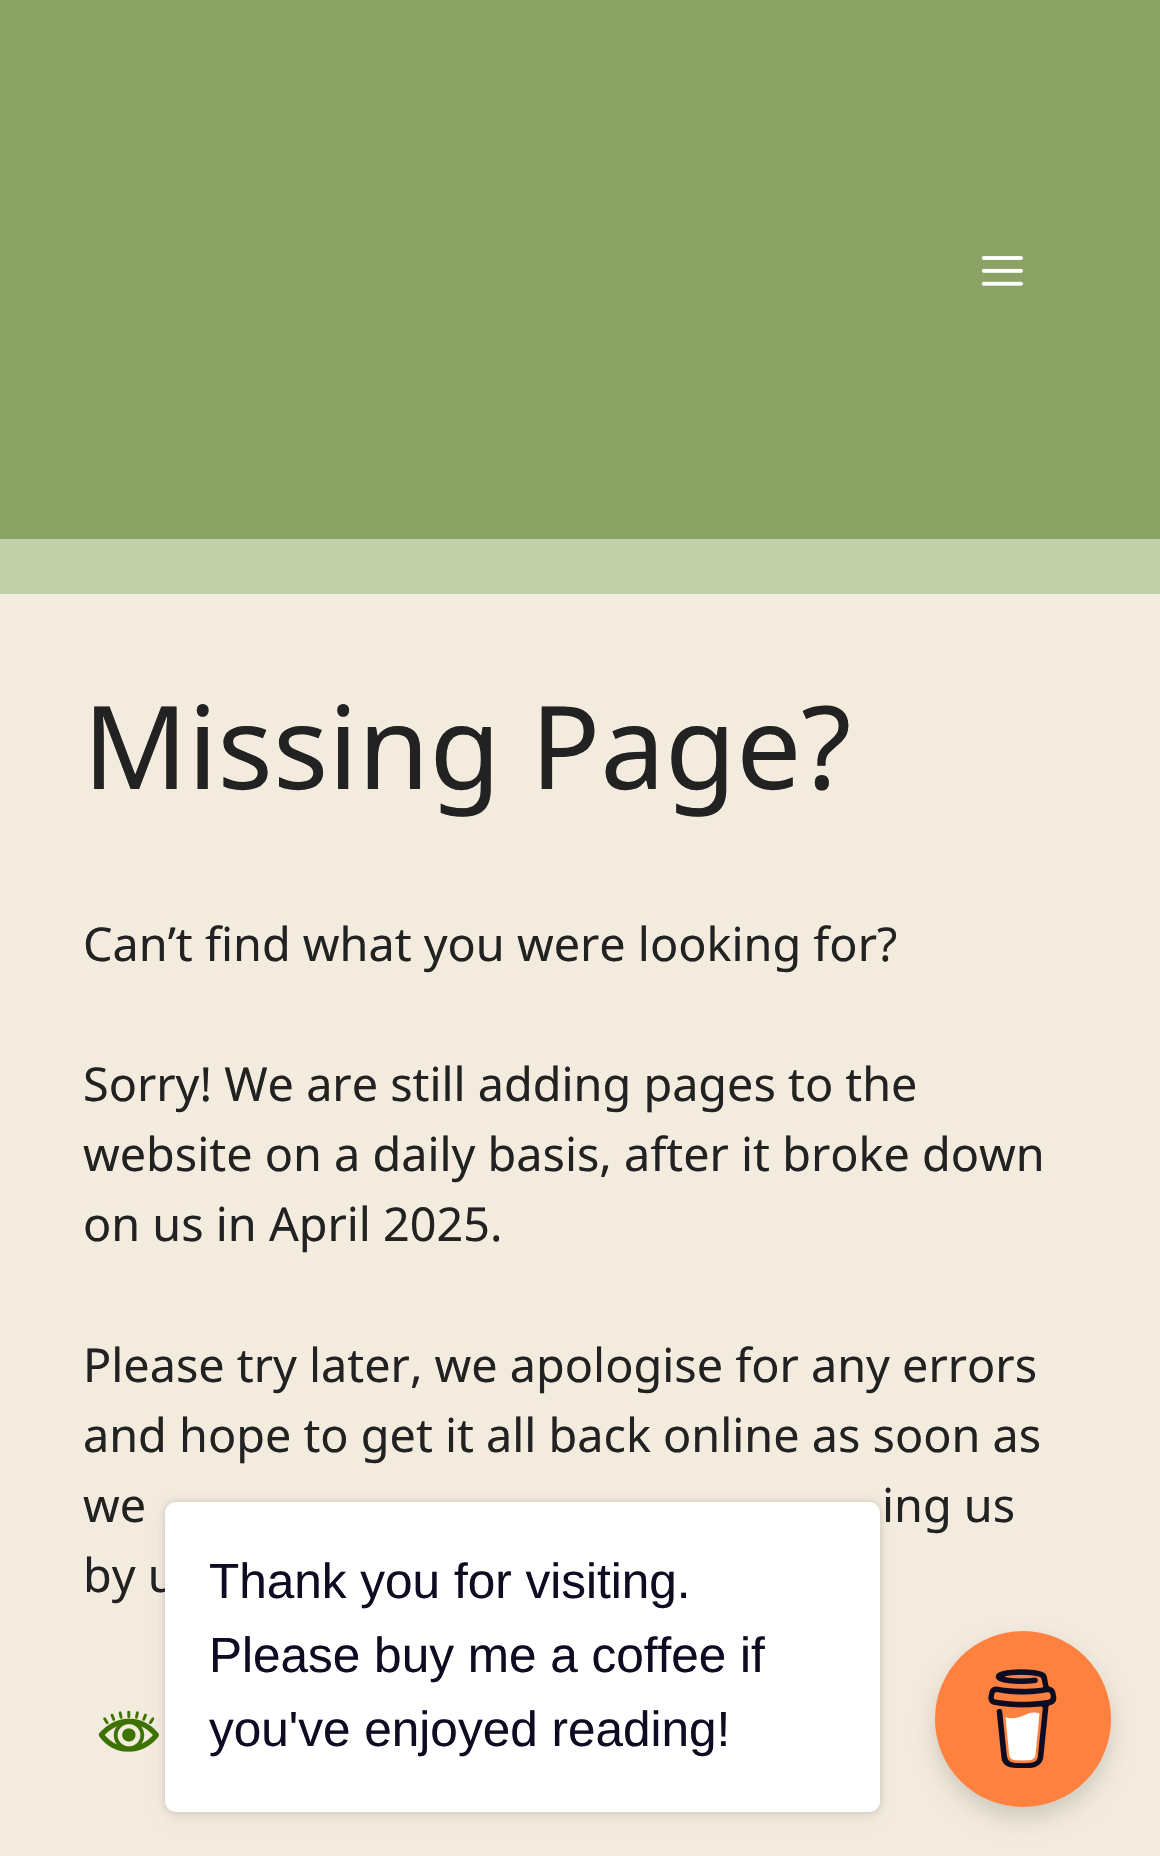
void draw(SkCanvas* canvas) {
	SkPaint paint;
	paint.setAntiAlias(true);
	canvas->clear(0xffc1d0a9);
	paint.setColor(0xff8ba265);
	canvas->drawRect(SkRect::MakeXYWH(0, 0, 1160, 539), paint);
	canvas->drawImageRect(SkImages::DeferredFromEncodedData(SkData::MakeFromFileName("img1.png")), SkRect::MakeXYWH(982, 256, 41, 30), SkSamplingOptions());
	paint.setColor(0xfff3ebde);
	canvas->drawRect(SkRect::MakeXYWH(0, 594, 1160, 1262), paint);
	SkFont f1(fontMgr->matchFamilyStyle("Noto Sans", SkFontStyle::Normal()), 115.5);
	f1.setSubpixel(true);
	paint.setColor(0xff222222);
	canvas->drawString("Missing Page?", 83, 789, f1, paint);
	SkFont f2(fontMgr->matchFamilyStyle("Noto Sans", SkFontStyle::Normal()), 46.75);
	f2.setSubpixel(true);
	canvas->drawString("Can’t find what you were looking for?", 83, 961, f2, paint);
	canvas->drawString("Sorry! We are still adding pages to the", 83, 1101, f2, paint);
	canvas->drawString("website on a daily basis, after it broke down", 83, 1171, f2, paint);
	canvas->drawString("on us in April 2025.", 83, 1241, f2, paint);
	canvas->drawString("Please try later, we apologise for any errors", 83, 1382, f2, paint);
	canvas->drawString("and hope to get it all back online as soon as", 83, 1452, f2, paint);
	canvas->drawString("we", 83, 1522, f2, paint);
	canvas->drawString("ing us", 882, 1522, f2, paint);
	canvas->drawString("by u", 83, 1592, f2, paint);
	canvas->drawImageRect(SkImages::DeferredFromEncodedData(SkData::MakeFromFileName("img2.png")), SkRect::MakeXYWH(98, 1711, 61, 41), SkSamplingOptions());
	paint.setColor(0x26000000);
	paint.setMaskFilter(SkMaskFilter::MakeBlur(kNormal_SkBlurStyle, 3));
	canvas->drawRoundRect(SkRect::MakeXYWH(165, 1502, 715, 310), 11, 11, paint);
	paint.setMaskFilter(nullptr);
	paint.setColor(0x0d000000);
	paint.setMaskFilter(SkMaskFilter::MakeBlur(kNormal_SkBlurStyle, 7));
	canvas->drawRoundRect(SkRect::MakeXYWH(165, 1507, 715, 311), 11, 11, paint);
	paint.setMaskFilter(nullptr);
	paint.setColor(0xffffffff);
	canvas->drawRoundRect(SkRect::MakeXYWH(165, 1502, 715, 310), 11, 11, paint);
	SkFont f3(fontMgr->matchFamilyStyle("Liberation Sans", SkFontStyle::Normal()), 49.5);
	f3.setSubpixel(true);
	paint.setColor(0xff0d0c22);
	canvas->drawString("Thank you for visiting.", 209, 1598, f3, paint);
	canvas->drawString("Please buy me a coffee if", 209, 1672, f3, paint);
	canvas->drawString("you've enjoyed reading!", 209, 1746, f3, paint);
	paint.setColor(0x26000000);
	paint.setMaskFilter(SkMaskFilter::MakeBlur(kNormal_SkBlurStyle, 11));
	canvas->drawRoundRect(SkRect::MakeXYWH(935, 1642, 176, 176), 88, 88, paint);
	paint.setMaskFilter(nullptr);
	paint.setColor(0xffff813f);
	canvas->drawCircle(1023, 1719, 88, paint);
	canvas->drawImageRect(SkImages::DeferredFromEncodedData(SkData::MakeFromFileName("img3.png")), SkRect::MakeXYWH(988, 1669, 69, 99), SkSamplingOptions());
}
